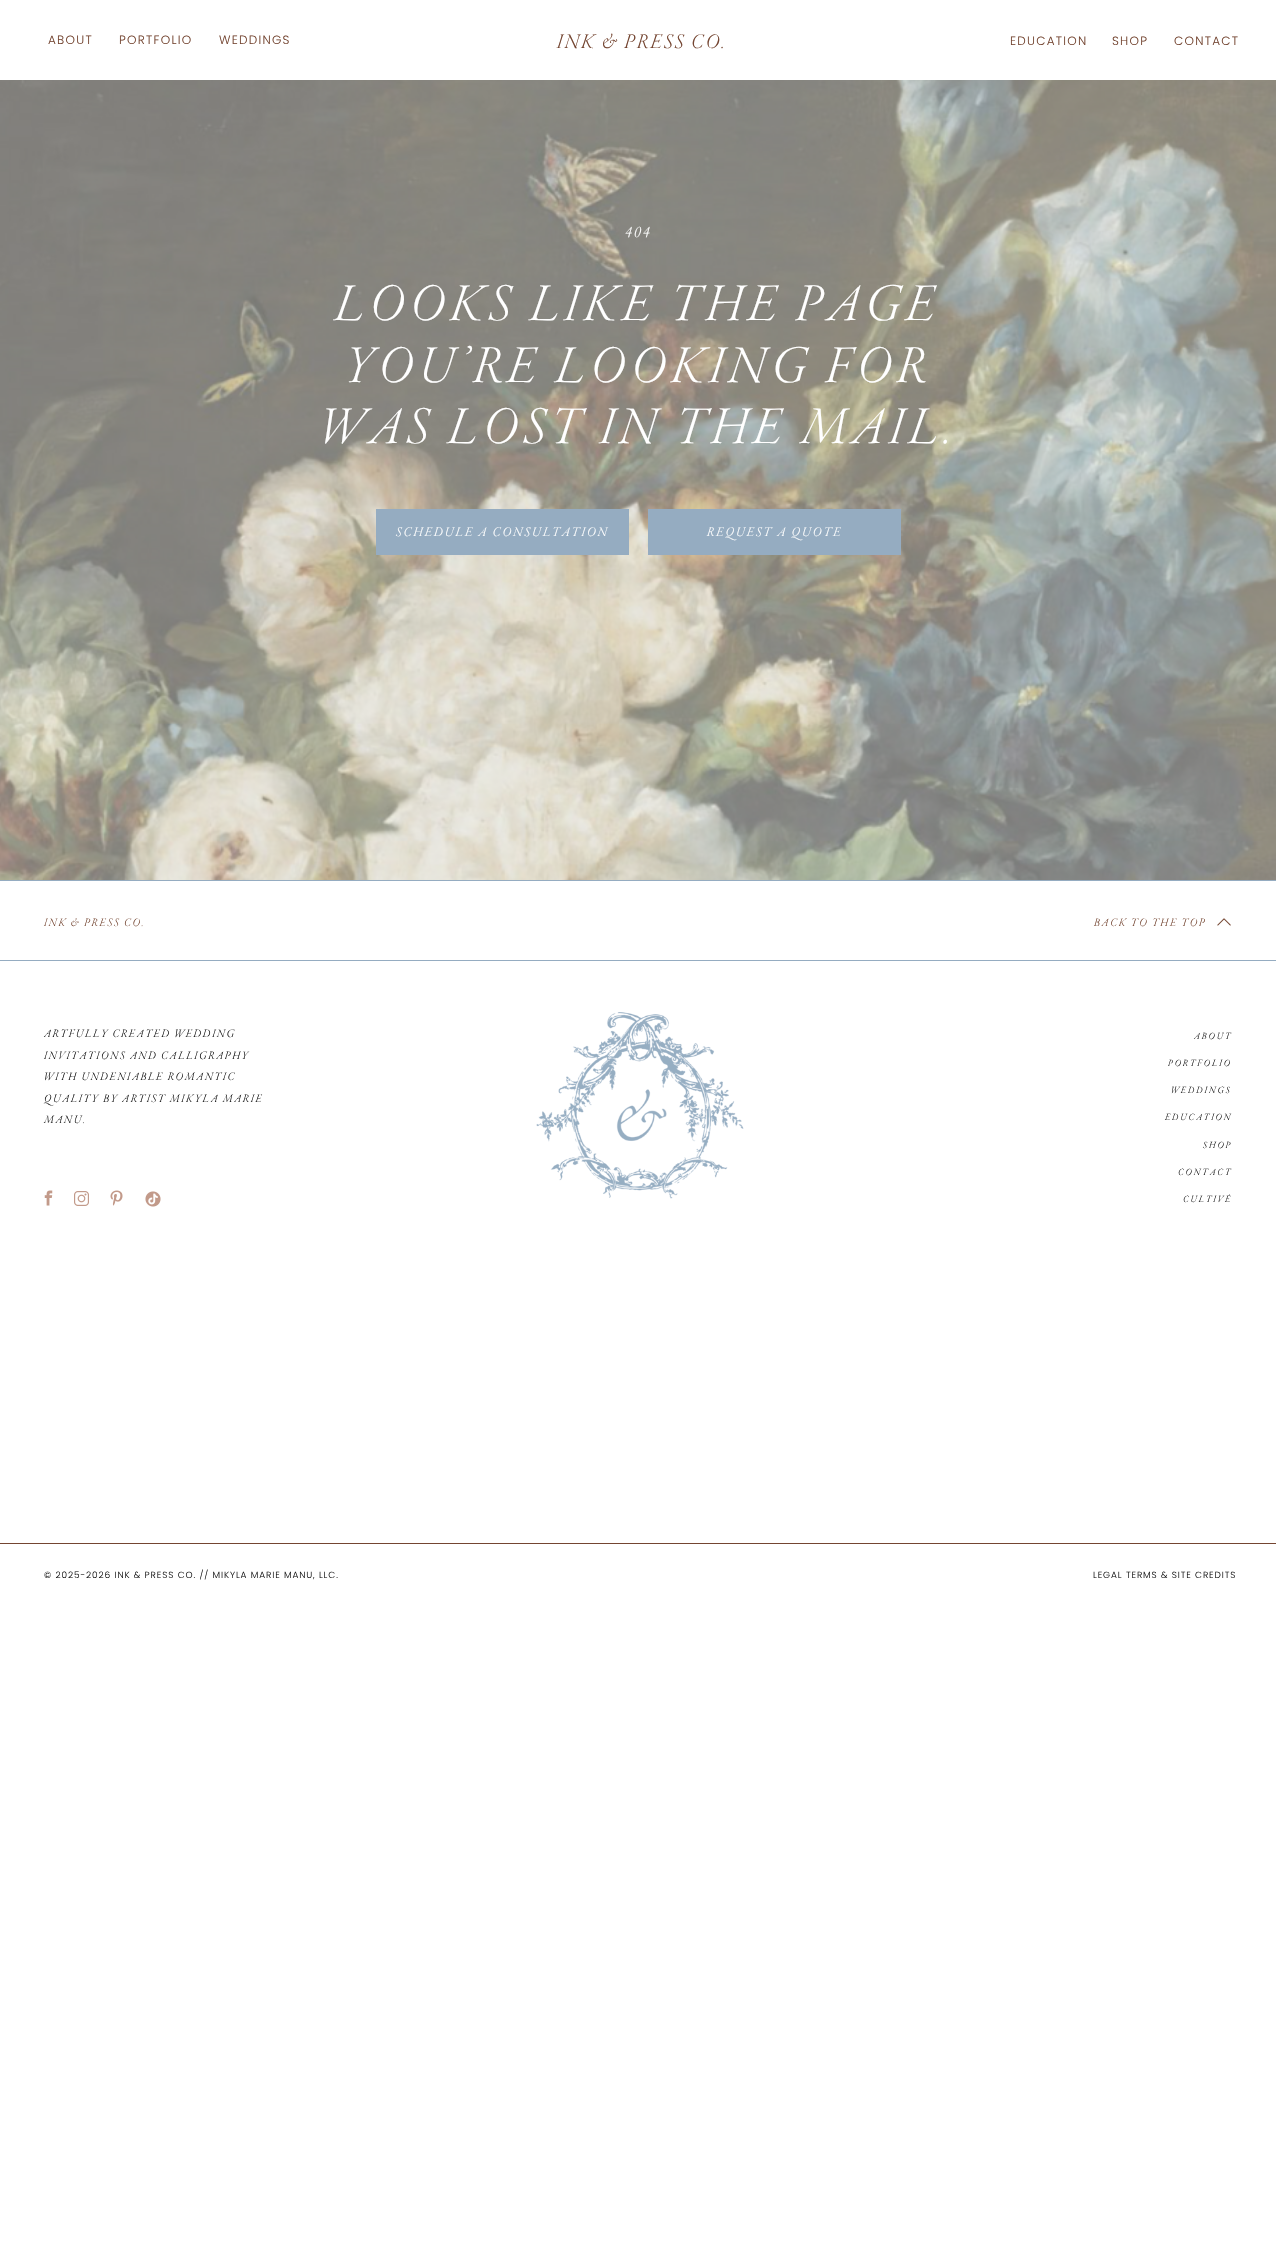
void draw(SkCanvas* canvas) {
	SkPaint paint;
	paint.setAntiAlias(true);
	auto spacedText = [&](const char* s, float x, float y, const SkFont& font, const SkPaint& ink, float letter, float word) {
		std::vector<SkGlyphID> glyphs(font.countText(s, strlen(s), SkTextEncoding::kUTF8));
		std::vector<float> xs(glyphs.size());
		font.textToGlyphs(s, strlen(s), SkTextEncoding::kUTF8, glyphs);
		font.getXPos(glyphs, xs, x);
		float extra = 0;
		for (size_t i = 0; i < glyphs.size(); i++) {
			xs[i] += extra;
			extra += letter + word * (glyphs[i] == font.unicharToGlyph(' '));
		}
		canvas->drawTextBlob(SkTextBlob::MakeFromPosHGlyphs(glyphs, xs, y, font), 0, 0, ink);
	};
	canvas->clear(0xffffffff);
	SkFont f1(fontMgr->matchFamilyStyle("Poppins", SkFontStyle(300, SkFontStyle::kNormal_Width, SkFontStyle::kUpright_Slant)), 12);
	f1.setSubpixel(true);
	paint.setColor(0xff744531);
	spacedText("ABOUT", 48, 44, f1, paint, 1.25, 0);
	spacedText("PORTFOLIO", 119, 44, f1, paint, 1.25, 0);
	spacedText("WEDDINGS", 219, 44, f1, paint, 1.25, 0);
	SkFont f2(fontMgr->matchFamilyStyle("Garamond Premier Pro", SkFontStyle(300, SkFontStyle::kNormal_Width, SkFontStyle::kItalic_Slant)), 22);
	f2.setSubpixel(true);
	spacedText("INK & PRESS CO.", 557, 48, f2, paint, 2.25, 0);
	spacedText("EDUCATION", 1010, 45, f1, paint, 1.25, 0);
	spacedText("SHOP", 1112, 45, f1, paint, 1.25, 0);
	spacedText("CONTACT", 1174, 45, f1, paint, 1.25, 0);
	paint.setColor(0xffece8e2);
	canvas->drawRect(SkRect::MakeXYWH(0, 80, 1276, 800), paint);
	canvas->drawImageRect(SkImages::DeferredFromEncodedData(SkData::MakeFromFileName("img1.png")), SkRect::MakeXYWH(0, 80, 1276, 800), SkSamplingOptions());
	SkFont f3(fontMgr->matchFamilyStyle("Garamond Premier Pro", SkFontStyle(300, SkFontStyle::kNormal_Width, SkFontStyle::kItalic_Slant)), 17);
	f3.setSubpixel(true);
	paint.setColor(0xffffffff);
	spacedText("404", 625, 237, f3, paint, 2, 0);
	SkFont f4(fontMgr->matchFamilyStyle("Garamond Premier Pro", SkFontStyle(300, SkFontStyle::kNormal_Width, SkFontStyle::kItalic_Slant)), 56);
	f4.setSubpixel(true);
	spacedText("LOOKS LIKE THE PAGE", 335, 320, f4, paint, 5.6, 0);
	spacedText("YOU’RE LOOKING FOR", 345, 382, f4, paint, 5.6, 0);
	spacedText("WAS LOST IN THE MAIL.", 320, 443, f4, paint, 5.6, 0);
	paint.setColor(0xff95acc1);
	canvas->drawRect(SkRect::MakeXYWH(376, 509, 253, 46), paint);
	canvas->drawRect(SkRect::MakeXYWH(648, 509, 253, 46), paint);
	SkFont f5(fontMgr->matchFamilyStyle("Garamond Premier Pro", SkFontStyle(300, SkFontStyle::kNormal_Width, SkFontStyle::kItalic_Slant)), 14);
	f5.setSubpixel(true);
	paint.setColor(0xffffffff);
	spacedText("SCHEDULE A CONSULTATION", 396, 536, f5, paint, 2.1, 0);
	spacedText("REQUEST A QUOTE", 707, 536, f5, paint, 2.1, 0);
	paint.setColor(0xff95acc1);
	canvas->drawRect(SkRect::MakeXYWH(0, 880, 1276, 1), paint);
	SkFont f6(fontMgr->matchFamilyStyle("Garamond Premier Pro", SkFontStyle(300, SkFontStyle::kNormal_Width, SkFontStyle::kItalic_Slant)), 12);
	f6.setSubpixel(true);
	paint.setColor(0xff744531);
	spacedText("INK & PRESS CO.", 44, 926, f6, paint, 1.8, 0);
	spacedText("BACK TO THE TOP", 1094, 926, f6, paint, 1.8, 0);
	canvas->drawImageRect(SkImages::DeferredFromEncodedData(SkData::MakeFromFileName("img2.png")), SkRect::MakeXYWH(1217, 918, 14, 8), SkSamplingOptions());
	paint.setColor(0xff95acc1);
	canvas->drawRect(SkRect::MakeXYWH(0, 960, 1276, 1), paint);
	paint.setColor(0xff141414);
	spacedText("ARTFULLY CREATED WEDDING", 44, 1037, f6, paint, 1.8, 0);
	spacedText("INVITATIONS AND CALLIGRAPHY", 44, 1059, f6, paint, 1.8, 0);
	spacedText("WITH UNDENIABLE ROMANTIC", 44, 1080, f6, paint, 1.8, 0);
	spacedText("QUALITY BY ARTIST MIKYLA MARIE", 44, 1102, f6, paint, 1.8, 0);
	spacedText("MANU.", 44, 1123, f6, paint, 1.8, 0);
	canvas->drawImageRect(SkImages::DeferredFromEncodedData(SkData::MakeFromFileName("img3.png")), SkRect::MakeXYWH(536, 1012, 208, 187), SkSamplingOptions());
	SkFont f7(fontMgr->matchFamilyStyle("Garamond Premier Pro", SkFontStyle(300, SkFontStyle::kNormal_Width, SkFontStyle::kItalic_Slant)), 10);
	f7.setSubpixel(true);
	spacedText("ABOUT", 1194, 1039, f7, paint, 2, 0);
	spacedText("PORTFOLIO", 1168, 1066, f7, paint, 2, 0);
	spacedText("WEDDINGS", 1171, 1093, f7, paint, 2, 0);
	spacedText("EDUCATION", 1165, 1120, f7, paint, 2, 0);
	spacedText("SHOP", 1203, 1148, f7, paint, 2, 0);
	spacedText("CONTACT", 1178, 1175, f7, paint, 2, 0);
	canvas->drawImageRect(SkImages::DeferredFromEncodedData(SkData::MakeFromFileName("img4.png")), SkRect::MakeXYWH(44, 1190, 9, 16), SkSamplingOptions());
	canvas->drawImageRect(SkImages::DeferredFromEncodedData(SkData::MakeFromFileName("img5.png")), SkRect::MakeXYWH(74, 1191, 15, 15), SkSamplingOptions());
	canvas->drawImageRect(SkImages::DeferredFromEncodedData(SkData::MakeFromFileName("img6.png")), SkRect::MakeXYWH(110, 1190, 13, 16), SkSamplingOptions());
	canvas->drawImageRect(SkImages::DeferredFromEncodedData(SkData::MakeFromFileName("img7.png")), SkRect::MakeXYWH(145, 1191, 16, 16), SkSamplingOptions());
	spacedText("CULTIVÉ", 1183, 1202, f7, paint, 2, 0);
	paint.setColor(0xff744531);
	canvas->drawRect(SkRect::MakeXYWH(0, 1543, 1276, 1), paint);
	SkFont f8(fontMgr->matchFamilyStyle("Poppins", SkFontStyle(300, SkFontStyle::kNormal_Width, SkFontStyle::kUpright_Slant)), 9);
	f8.setSubpixel(true);
	paint.setColor(0xff141414);
	spacedText("© 2025-2026 INK & PRESS CO. // MIKYLA MARIE MANU, LLC.", 44, 1578, f8, paint, 0.9, 0);
	spacedText("LEGAL TERMS & SITE CREDITS", 1093, 1578, f8, paint, 0.9, 0);
}
